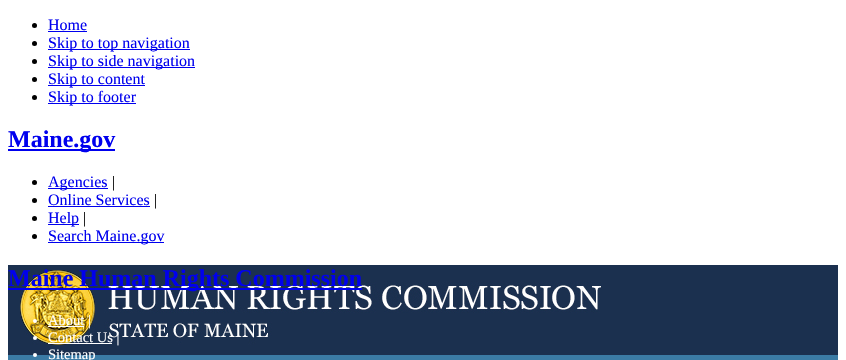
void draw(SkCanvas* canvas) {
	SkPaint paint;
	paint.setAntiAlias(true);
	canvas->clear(0xffffffff);
	paint.setColor(0xff000000);
	canvas->drawCircle(34.5, 25.5, 2.5, paint);
	SkFont f1(fontMgr->matchFamilyStyle("Liberation Serif", SkFontStyle::Normal()), 16);
	f1.setSubpixel(true);
	paint.setColor(0xff0000ee);
	canvas->drawString("Home", 48, 30, f1, paint);
	canvas->drawRect(SkRect::MakeXYWH(48, 31, 39, 1), paint);
	paint.setColor(0xff000000);
	canvas->drawCircle(34.5, 43.5, 2.5, paint);
	paint.setColor(0xff0000ee);
	canvas->drawRect(SkRect::MakeXYWH(48, 49, 142, 1), paint);
	canvas->drawString("Skip to top navigation", 48, 48, f1, paint);
	paint.setColor(0xff000000);
	canvas->drawCircle(34.5, 61.5, 2.5, paint);
	paint.setColor(0xff0000ee);
	canvas->drawRect(SkRect::MakeXYWH(48, 67, 147, 1), paint);
	canvas->drawString("Skip to side navigation", 48, 66, f1, paint);
	paint.setColor(0xff000000);
	canvas->drawCircle(34.5, 79.5, 2.5, paint);
	paint.setColor(0xff0000ee);
	canvas->drawRect(SkRect::MakeXYWH(48, 85, 97, 1), paint);
	canvas->drawString("Skip to content", 48, 84, f1, paint);
	paint.setColor(0xff000000);
	canvas->drawCircle(34.5, 97.5, 2.5, paint);
	paint.setColor(0xff0000ee);
	canvas->drawRect(SkRect::MakeXYWH(48, 103, 88, 1), paint);
	canvas->drawString("Skip to footer", 48, 102, f1, paint);
	canvas->drawRect(SkRect::MakeXYWH(8, 149, 107, 2), paint);
	SkFont f2(fontMgr->matchFamilyStyle("Liberation Serif", SkFontStyle::Bold()), 24);
	f2.setSubpixel(true);
	canvas->drawString("Maine.gov", 8, 147, f2, paint);
	paint.setColor(0xff000000);
	canvas->drawCircle(34.5, 182.5, 2.5, paint);
	paint.setColor(0xff0000ee);
	canvas->drawRect(SkRect::MakeXYWH(48, 188, 60, 1), paint);
	canvas->drawString("Agencies", 48, 187, f1, paint);
	paint.setColor(0xff000000);
	canvas->drawString("|", 112, 187, f1, paint);
	canvas->drawCircle(34.5, 200.5, 2.5, paint);
	paint.setColor(0xff0000ee);
	canvas->drawString("Online Services", 48, 205, f1, paint);
	canvas->drawRect(SkRect::MakeXYWH(48, 206, 102, 1), paint);
	paint.setColor(0xff000000);
	canvas->drawString("|", 154, 205, f1, paint);
	canvas->drawCircle(34.5, 218.5, 2.5, paint);
	paint.setColor(0xff0000ee);
	canvas->drawRect(SkRect::MakeXYWH(48, 224, 31, 1), paint);
	canvas->drawString("Help", 48, 223, f1, paint);
	paint.setColor(0xff000000);
	canvas->drawString("|", 83, 223, f1, paint);
	canvas->drawCircle(34.5, 236.5, 2.5, paint);
	paint.setColor(0xff0000ee);
	canvas->drawRect(SkRect::MakeXYWH(48, 242, 116, 1), paint);
	canvas->drawString("Search Maine.gov", 48, 241, f1, paint);
	paint.setColor(0xff1b304f);
	canvas->drawRect(SkRect::MakeXYWH(8, 265, 830, 90), paint);
	canvas->drawImageRect(SkImages::DeferredFromEncodedData(SkData::MakeFromFileName("img1.png")), SkRect::MakeXYWH(20, 270, 581, 75), SkSamplingOptions());
	paint.setColor(0xff0000ee);
	canvas->drawRect(SkRect::MakeXYWH(8, 288, 354, 2), paint);
	canvas->drawString("Maine Human Rights Commission", 8, 286, f2, paint);
	paint.setColor(0xffffffff);
	canvas->drawCircle(35, 321, 2, paint);
	canvas->drawRect(SkRect::MakeXYWH(48, 326, 36, 1), paint);
	SkFont f3(fontMgr->matchFamilyStyle("Liberation Serif", SkFontStyle::Normal()), 14.5);
	f3.setSubpixel(true);
	canvas->drawString("About |", 48, 325, f3, paint);
	canvas->drawCircle(35, 338, 2, paint);
	canvas->drawRect(SkRect::MakeXYWH(48, 343, 64, 1), paint);
	canvas->drawString("Contact Us |", 48, 342, f3, paint);
	paint.setColor(0xff3b7ba5);
	canvas->drawRect(SkRect::MakeXYWH(8, 355, 830, 5), paint);
	paint.setColor(0xffffffff);
	canvas->drawCircle(35, 355, 2, paint);
	canvas->drawString("Sitemap", 48, 359, f3, paint);
}
